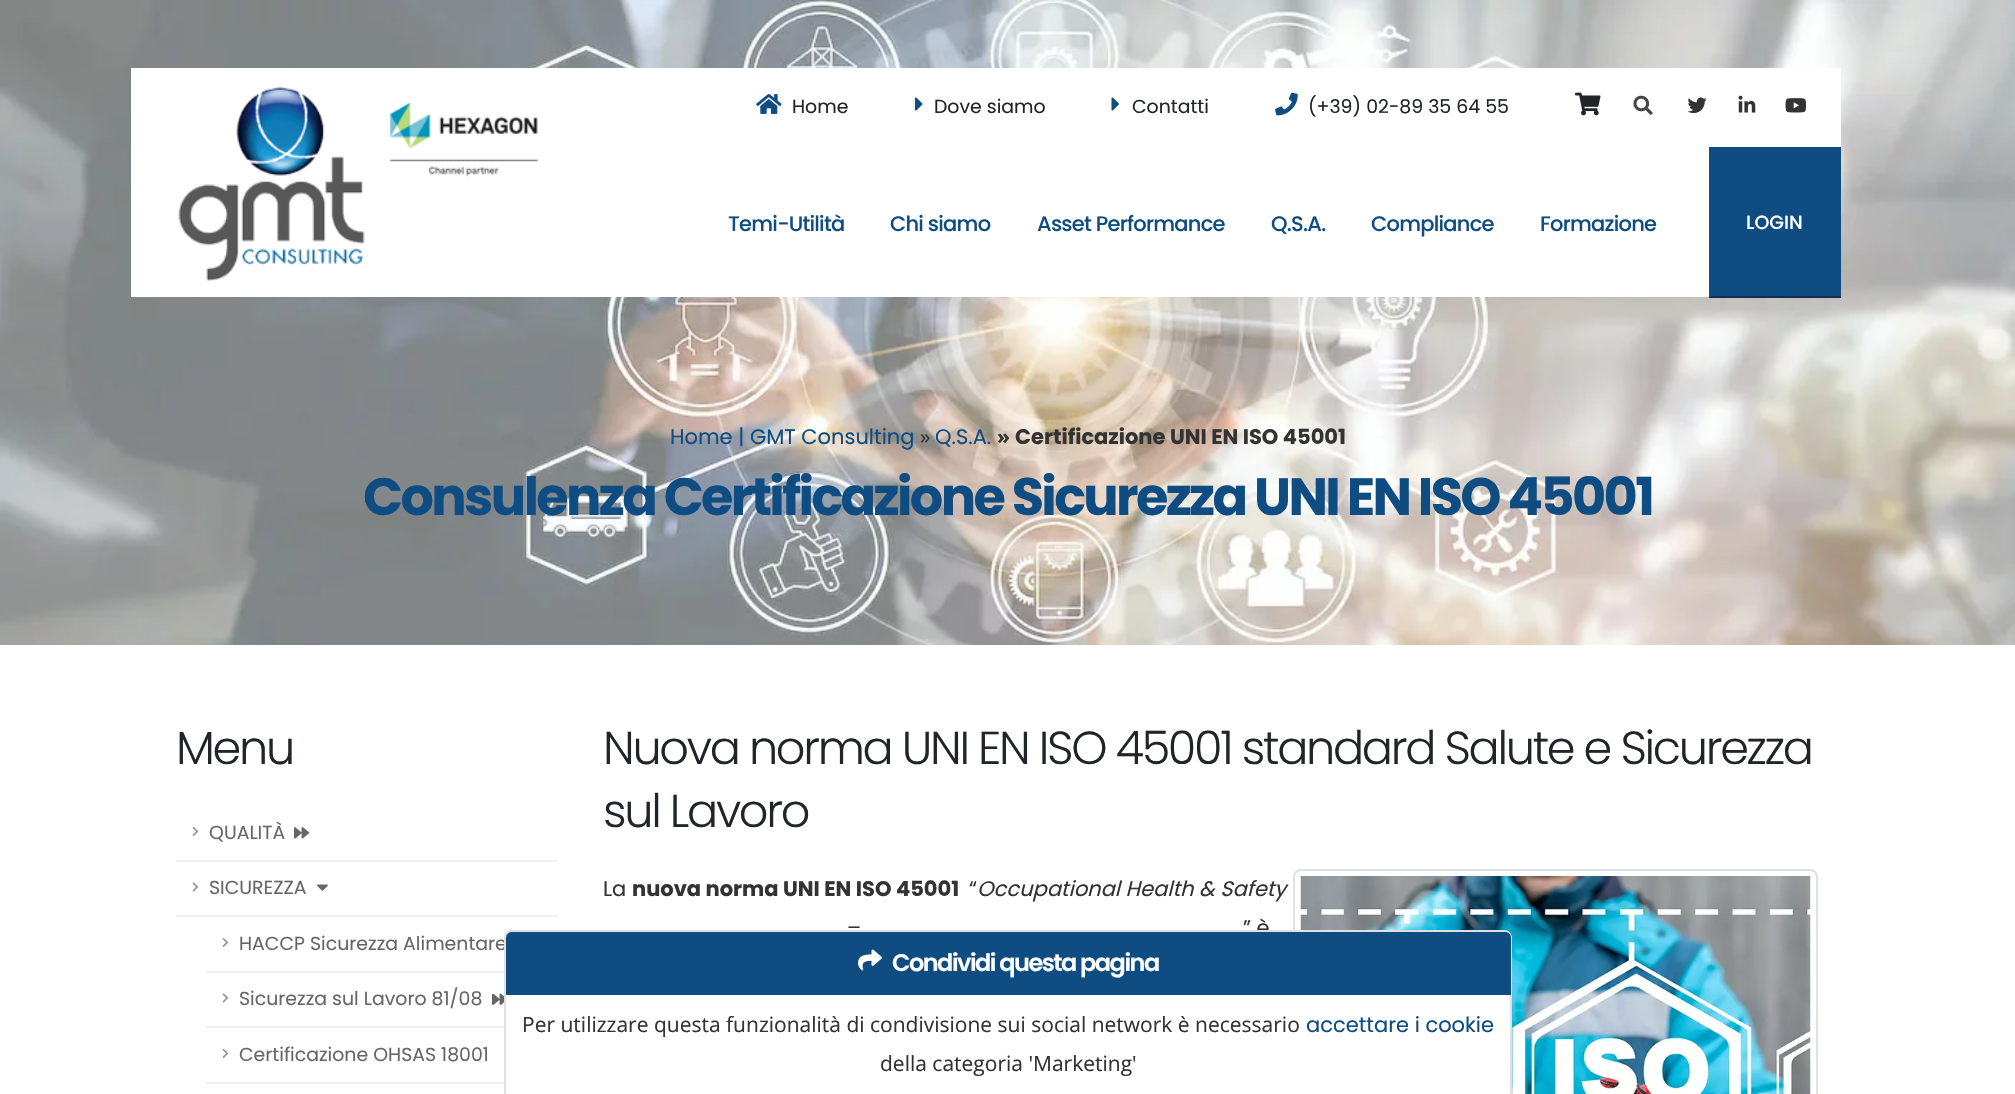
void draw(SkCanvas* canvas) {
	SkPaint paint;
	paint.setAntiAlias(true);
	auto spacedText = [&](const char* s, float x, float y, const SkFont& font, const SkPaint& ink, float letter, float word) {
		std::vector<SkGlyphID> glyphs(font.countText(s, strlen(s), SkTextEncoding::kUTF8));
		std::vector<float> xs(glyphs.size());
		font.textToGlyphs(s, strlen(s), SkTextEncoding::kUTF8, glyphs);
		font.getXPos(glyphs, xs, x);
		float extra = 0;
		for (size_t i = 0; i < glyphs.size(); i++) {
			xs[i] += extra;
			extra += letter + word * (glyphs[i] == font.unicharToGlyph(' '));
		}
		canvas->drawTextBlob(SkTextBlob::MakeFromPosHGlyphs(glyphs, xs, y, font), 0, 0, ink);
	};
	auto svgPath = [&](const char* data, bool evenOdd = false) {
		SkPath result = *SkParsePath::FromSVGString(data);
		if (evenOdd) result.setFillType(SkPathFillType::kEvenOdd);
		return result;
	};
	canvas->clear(0xffffffff);
	canvas->drawImageRect(SkImages::DeferredFromEncodedData(SkData::MakeFromFileName("img11.png")), SkRect::MakeXYWH(0, 0, 2015, 645), SkSamplingOptions());
	paint.setColor(0xffffffff);
	canvas->drawRect(SkRect::MakeXYWH(131, 68, 1710, 229), paint);
	canvas->drawImageRect(SkImages::DeferredFromEncodedData(SkData::MakeFromFileName("img1.png")), SkRect::MakeXYWH(756, 94, 26, 20), SkSamplingOptions());
	SkFont f1(fontMgr->matchFamilyStyle("Poppins", SkFontStyle::Normal()), 18.9);
	f1.setSubpixel(true);
	paint.setColor(0xff212529);
	canvas->drawString("Home", 792, 113, f1, paint);
	canvas->drawImageRect(SkImages::DeferredFromEncodedData(SkData::MakeFromFileName("img2.png")), SkRect::MakeXYWH(915, 97, 8, 14), SkSamplingOptions());
	canvas->drawString("Dove siamo", 934, 113, f1, paint);
	canvas->drawImageRect(SkImages::DeferredFromEncodedData(SkData::MakeFromFileName("img3.png")), SkRect::MakeXYWH(1111, 97, 8, 14), SkSamplingOptions());
	canvas->drawString("Contatti", 1132, 113, f1, paint);
	canvas->drawImageRect(SkImages::DeferredFromEncodedData(SkData::MakeFromFileName("img4.png")), SkRect::MakeXYWH(1275, 92, 23, 24), SkSamplingOptions());
	canvas->drawString("(+39) 02-89 35 64 55", 1308, 113, f1, paint);
	canvas->drawImageRect(SkImages::DeferredFromEncodedData(SkData::MakeFromFileName("img5.png")), SkRect::MakeXYWH(1575, 92, 26, 24), SkSamplingOptions());
	canvas->drawImageRect(SkImages::DeferredFromEncodedData(SkData::MakeFromFileName("img6.png")), SkRect::MakeXYWH(1633, 95, 20, 20), SkSamplingOptions());
	canvas->drawImageRect(SkImages::DeferredFromEncodedData(SkData::MakeFromFileName("img7.png")), SkRect::MakeXYWH(1687, 97, 20, 17), SkSamplingOptions());
	canvas->drawImageRect(SkImages::DeferredFromEncodedData(SkData::MakeFromFileName("img8.png")), SkRect::MakeXYWH(1738, 95, 18, 18), SkSamplingOptions());
	canvas->drawImageRect(SkImages::DeferredFromEncodedData(SkData::MakeFromFileName("img9.png")), SkRect::MakeXYWH(1785, 98, 22, 15), SkSamplingOptions());
	canvas->drawImageRect(SkImages::DeferredFromEncodedData(SkData::MakeFromFileName("img10.png")), SkRect::MakeXYWH(178, 87, 361, 194), SkSamplingOptions());
	SkFont f2(fontMgr->matchFamilyStyle("Poppins", SkFontStyle(500, SkFontStyle::kNormal_Width, SkFontStyle::kUpright_Slant)), 21);
	f2.setSubpixel(true);
	paint.setColor(0xff0f4c81);
	spacedText("Temi-Utilità", 728, 231, f2, paint, -0.75, 0);
	spacedText("Chi siamo", 890, 231, f2, paint, -0.75, 0);
	spacedText("Asset Performance", 1037, 231, f2, paint, -0.75, 0);
	spacedText("Q.S.A.", 1271, 231, f2, paint, -0.75, 0);
	spacedText("Compliance", 1371, 231, f2, paint, -0.75, 0);
	spacedText("Formazione", 1540, 231, f2, paint, -0.75, 0);
	canvas->drawRect(SkRect::MakeXYWH(1711, 147, 130, 149), paint);
	paint.setColor(0xff0a3153);
	canvas->drawRect(SkRect::MakeXYWH(1709, 296, 132, 2), paint);
	paint.setColor(0xff0f4c81);
	canvas->drawRect(SkRect::MakeXYWH(1709, 147, 2, 150), paint);
	SkFont f3(fontMgr->matchFamilyStyle("Poppins", SkFontStyle(500, SkFontStyle::kNormal_Width, SkFontStyle::kUpright_Slant)), 19);
	f3.setSubpixel(true);
	paint.setColor(0xffffffff);
	canvas->drawString("LOGIN", 1746, 229, f3, paint);
	SkFont f4(fontMgr->matchFamilyStyle("Poppins", SkFontStyle::Normal()), 21);
	f4.setSubpixel(true);
	paint.setColor(0xff0f4c81);
	canvas->drawString("Home | GMT Consulting", 670, 444, f4, paint);
	SkFont f5(fontMgr->matchFamilyStyle("Open Sans", SkFontStyle::Normal()), 21);
	f5.setSubpixel(true);
	paint.setColor(0xff333333);
	canvas->drawString("»", 920, 444, f5, paint);
	paint.setColor(0xff0f4c81);
	canvas->drawString("Q.S.A.", 935, 444, f4, paint);
	SkFont f6(fontMgr->matchFamilyStyle("Open Sans", SkFontStyle::Bold()), 21);
	f6.setSubpixel(true);
	paint.setColor(0xff333333);
	canvas->drawString("»", 997, 444, f6, paint);
	SkFont f7(fontMgr->matchFamilyStyle("Poppins", SkFontStyle::Bold()), 21);
	f7.setSubpixel(true);
	canvas->drawString("Certificazione UNI EN ISO 45001", 1015, 444, f7, paint);
	SkFont f8(fontMgr->matchFamilyStyle("Poppins", SkFontStyle::Bold()), 52.5);
	f8.setSubpixel(true);
	paint.setColor(0xff0f4c81);
	spacedText("Consulenza Certificazione Sicurezza UNI EN ISO 45001", 363, 515, f8, paint, -2.62, 0);
	SkFont f9(fontMgr->matchFamilyStyle("Poppins", SkFontStyle(300, SkFontStyle::kNormal_Width, SkFontStyle::kUpright_Slant)), 46.2);
	f9.setSubpixel(true);
	paint.setColor(0xff212529);
	spacedText("Menu", 176, 764, f9, paint, -2.3, 0);
	paint.setColor(0xfff0f0f0);
	canvas->drawRect(SkRect::MakeXYWH(176, 860, 382, 2), paint);
	canvas->drawImageRect(SkImages::DeferredFromEncodedData(SkData::MakeFromFileName("img12.png")), SkRect::MakeXYWH(192, 826, 7, 10), SkSamplingOptions());
	paint.setColor(0xff666666);
	canvas->drawString("QUALITÀ", 209, 839, f1, paint);
	canvas->drawImageRect(SkImages::DeferredFromEncodedData(SkData::MakeFromFileName("img13.png")), SkRect::MakeXYWH(294, 827, 16, 12), SkSamplingOptions());
	paint.setColor(0xfff0f0f0);
	canvas->drawRect(SkRect::MakeXYWH(176, 915, 382, 2), paint);
	canvas->drawImageRect(SkImages::DeferredFromEncodedData(SkData::MakeFromFileName("img14.png")), SkRect::MakeXYWH(192, 882, 7, 10), SkSamplingOptions());
	paint.setColor(0xff666666);
	canvas->drawString("SICUREZZA", 209, 894, f1, paint);
	canvas->drawImageRect(SkImages::DeferredFromEncodedData(SkData::MakeFromFileName("img15.png")), SkRect::MakeXYWH(316, 884, 12, 7), SkSamplingOptions());
	paint.setColor(0xfff0f0f0);
	canvas->drawRect(SkRect::MakeXYWH(206, 971, 298, 2), paint);
	canvas->drawImageRect(SkImages::DeferredFromEncodedData(SkData::MakeFromFileName("img12.png")), SkRect::MakeXYWH(222, 937, 7, 10), SkSamplingOptions());
	paint.setColor(0xff666666);
	canvas->drawString("HACCP Sicurezza Alimentare", 239, 950, f1, paint);
	paint.setColor(0xfff0f0f0);
	canvas->drawRect(SkRect::MakeXYWH(206, 1026, 298, 2), paint);
	canvas->drawImageRect(SkImages::DeferredFromEncodedData(SkData::MakeFromFileName("img14.png")), SkRect::MakeXYWH(222, 993, 7, 10), SkSamplingOptions());
	paint.setColor(0xff666666);
	canvas->drawString("Sicurezza sul Lavoro 81/08", 239, 1005, f1, paint);
	canvas->drawImageRect(SkImages::DeferredFromEncodedData(SkData::MakeFromFileName("img16.png")), SkRect::MakeXYWH(492, 993, 12, 12), SkSamplingOptions());
	paint.setColor(0xfff0f0f0);
	canvas->drawRect(SkRect::MakeXYWH(206, 1082, 298, 2), paint);
	canvas->drawImageRect(SkImages::DeferredFromEncodedData(SkData::MakeFromFileName("img12.png")), SkRect::MakeXYWH(222, 1048, 7, 10), SkSamplingOptions());
	paint.setColor(0xff666666);
	canvas->drawString("Certificazione OHSAS 18001", 239, 1061, f1, paint);
	paint.setColor(0xff212529);
	spacedText("Nuova norma UNI EN ISO 45001 standard Salute e Sicurezza", 603, 764, f9, paint, -2.3, 0);
	spacedText("sul Lavoro", 603, 827, f9, paint, -2.3, 0);
	paint.setColor(0xff333333);
	canvas->drawString("La", 603, 896, f4, paint);
	canvas->drawString("nuova norma UNI EN ISO 45001", 632, 896, f7, paint);
	canvas->drawString("“", 969, 896, f4, paint);
	SkFont f10(fontMgr->matchFamilyStyle("Poppins", SkFontStyle::Italic()), 21);
	f10.setSubpixel(true);
	canvas->drawString("Occupational Health & Safety", 977, 896, f10, paint);
	paint.setStroke(true);
	paint.setStrokeWidth(2);
	paint.setColor(0xffdee2e6);
	canvas->drawRoundRect(SkRect::MakeXYWH(1294, 870, 523, 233), 7, 7, paint);
	canvas->drawImageRect(SkImages::DeferredFromEncodedData(SkData::MakeFromFileName("img17.png")), SkRect::MakeXYWH(1300, 876, 511, 218), SkSamplingOptions());
	paint.setStroke(false);
	paint.setColor(0xff333333);
	canvas->drawString("–", 845, 935, f10, paint);
	canvas->drawString("” è", 1243, 935, f4, paint);
	paint.setColor(0xffffffff);
	canvas->drawPath(svgPath("M512 930H1504C1508.5 930 1512 933.5 1512 938V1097H504V938C504 933.5 507.5 930 512 930Z"), paint);
	paint.setStroke(true);
	paint.setColor(0x1f000000);
	canvas->drawPath(svgPath("M512 931H1504C1508 931 1511 934 1511 938V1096H505V938C505 934 508 931 512 931Z"), paint);
	paint.setStroke(false);
	paint.setColor(0xff0f4c81);
	canvas->drawPath(svgPath("M512 932H1505C1508.5 932 1511 934.5 1511 938V995H506V938C506 934.5 508.5 932 512 932Z"), paint);
	canvas->drawImageRect(SkImages::DeferredFromEncodedData(SkData::MakeFromFileName("img18.png")), SkRect::MakeXYWH(858, 949, 24, 22), SkSamplingOptions());
	SkFont f11(fontMgr->matchFamilyStyle("Poppins", SkFontStyle(600, SkFontStyle::kNormal_Width, SkFontStyle::kUpright_Slant)), 24);
	f11.setSubpixel(true);
	paint.setColor(0xffffffff);
	spacedText("Condividi questa pagina", 892, 971, f11, paint, -1.5, 0);
	paint.setColor(0xff333333);
	canvas->drawString("Per utilizzare questa funzionalità di condivisione sui social network è necessario", 522, 1032, f5, paint);
	paint.setColor(0xff0f4c81);
	canvas->drawString("accettare i cookie", 1306, 1032, f4, paint);
	paint.setColor(0xff333333);
	canvas->drawString("della categoria 'Marketing'", 880, 1071, f5, paint);
}
